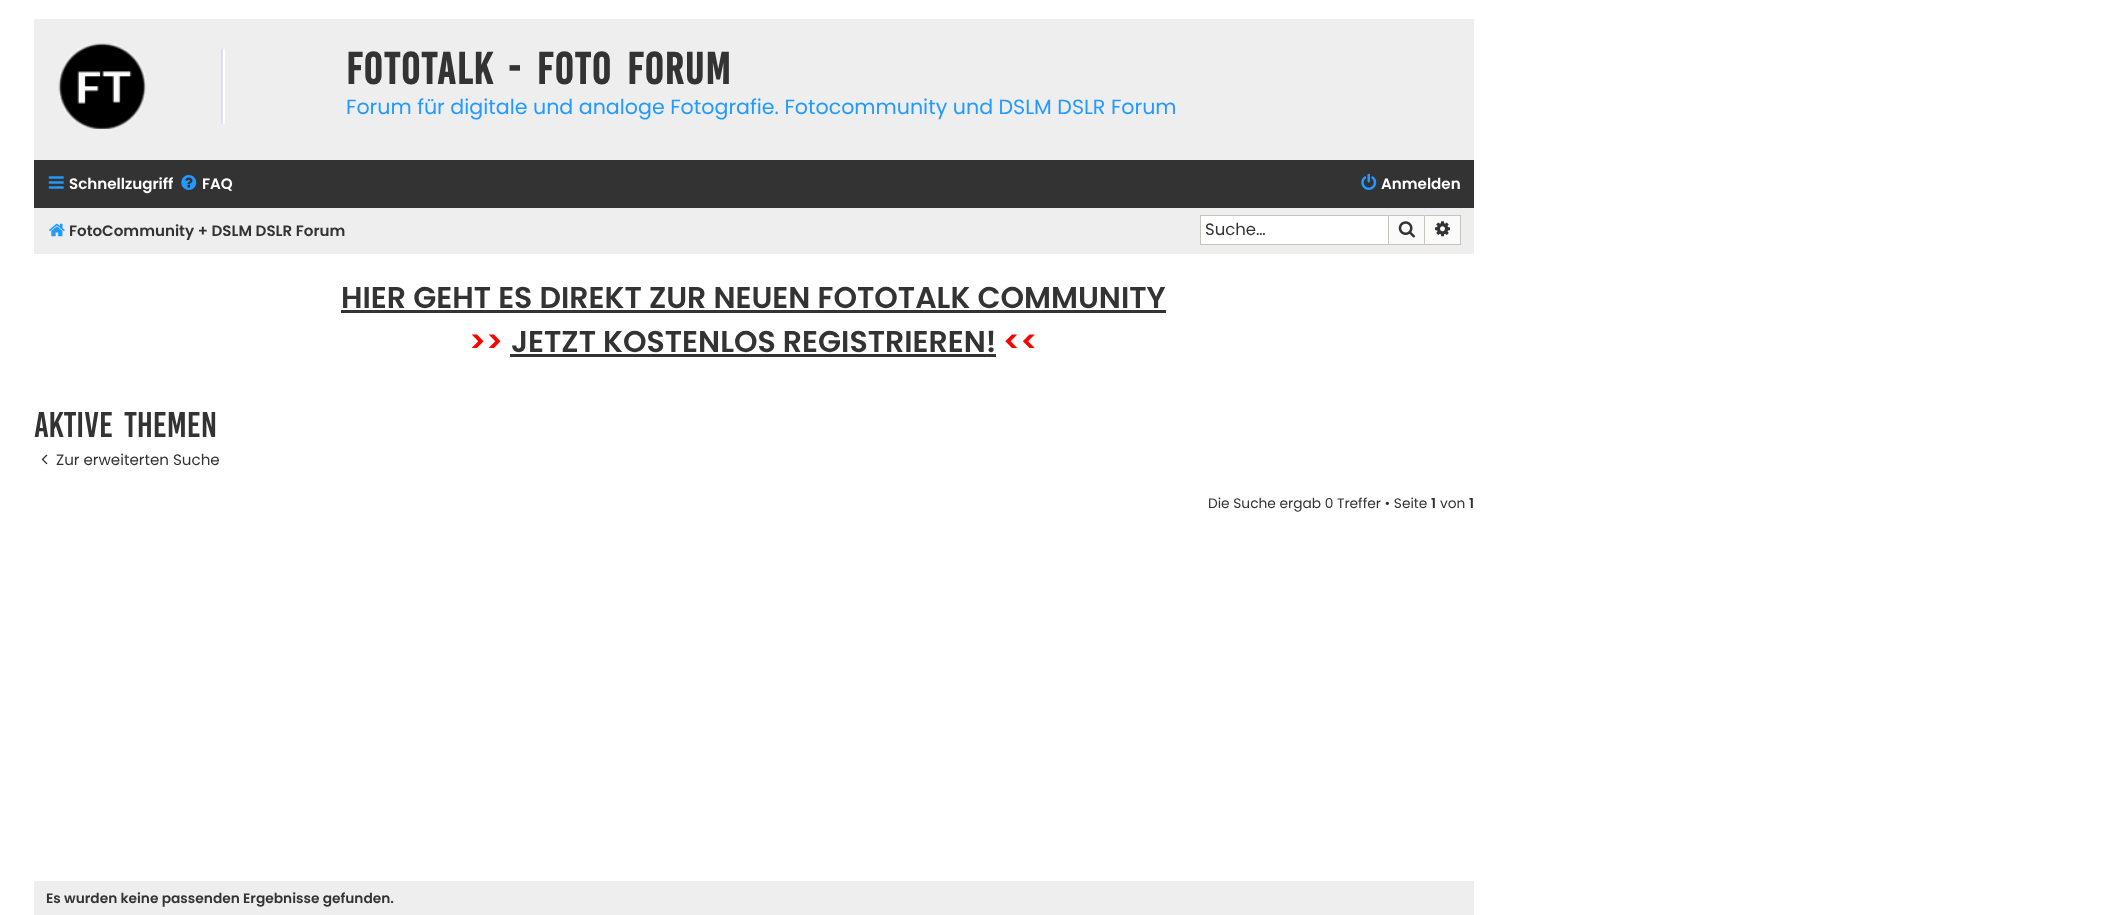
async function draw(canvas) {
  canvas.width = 2120;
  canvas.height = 915;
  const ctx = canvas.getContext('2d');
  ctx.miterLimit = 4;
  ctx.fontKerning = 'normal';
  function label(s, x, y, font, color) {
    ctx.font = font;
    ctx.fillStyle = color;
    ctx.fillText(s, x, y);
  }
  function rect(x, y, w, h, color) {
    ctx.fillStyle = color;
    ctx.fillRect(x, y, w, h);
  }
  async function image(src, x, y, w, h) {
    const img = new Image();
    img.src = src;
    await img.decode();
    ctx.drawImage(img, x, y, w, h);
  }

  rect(0, 0, 2120, 915, '#fff');
  rect(34, 19, 1440, 141, '#eee');
  await image('assets/img1.png', 58, 43, 167, 86);
  ctx.letterSpacing = '1.25px';
  ctx.wordSpacing = '5px';
  label('FotoTalk - Foto Forum', 346, 84, 'bold 34.4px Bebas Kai', '#333');
  ctx.letterSpacing = '0px';
  ctx.wordSpacing = '0px';
  label('Forum für digitale und analoge Fotografie. Fotocommunity und DSLM DSLR Forum', 346, 114, '20.6px Poppins', '#239aff');
  rect(34, 160, 1440, 48, '#333');
  await image('assets/img2.png', 48, 176, 16, 13);
  label('Schnellzugriff', 69, 189, '600 15.1px Poppins', '#fff');
  await image('assets/img3.png', 181, 175, 16, 15);
  label('FAQ', 202, 189, '600 15.1px Poppins', '#fff');
  await image('assets/img4.png', 1361, 173, 16, 17);
  label('Anmelden', 1381, 189, '600 15.1px Poppins', '#fff');
  rect(34, 208, 1440, 46, '#eee');
  await image('assets/img5.png', 49, 223, 16, 14);
  label('FotoCommunity + DSLM DSLR Forum', 69, 236, '600 15.1px Poppins', '#333');
  rect(1201, 216, 187, 28, '#fff');
  rect(1200, 215, 188, 1, '#c7c3bf');
  rect(1200, 244, 188, 1, '#c7c3bf');
  rect(1200, 215, 1, 30, '#c7c3bf');
  label('Suche…', 1205, 235, '16.5px Poppins', '#333');
  ctx.fillStyle = '#fafafa';
  ctx.beginPath();
  ctx.rect(1388.5, 215.5, 36, 29);
  ctx.fill();
  ctx.strokeStyle = '#c7c3bf';
  ctx.stroke();
  await image('assets/img6.png', 1398, 221, 17, 17);
  rect(1425, 216, 35, 28, '#fafafa');
  rect(1425, 215, 36, 1, '#c7c3bf');
  rect(1460, 215, 1, 30, '#c7c3bf');
  rect(1425, 244, 36, 1, '#c7c3bf');
  await image('assets/img7.png', 1435, 221, 15, 16);
  label('HIER GEHT ES DIREKT ZUR NEUEN FOTOTALK COMMUNITY', 341, 308, '600 30px Poppins', '#333');
  rect(341, 310, 825, 3, '#333');
  label('>>', 469, 352, '600 30px Poppins', '#f00');
  label('JETZT KOSTENLOS REGISTRIEREN!', 511, 352, '600 30px Poppins', '#333');
  rect(510, 354, 486, 3, '#333');
  label('<<', 1003, 352, '600 30px Poppins', '#f00');
  ctx.wordSpacing = '5px';
  label('Aktive Themen', 34, 437, '27.5px Bebas Kai', '#333');
  await image('assets/img8.png', 41, 454, 7, 11);
  ctx.wordSpacing = '0px';
  label('Zur erweiterten Suche', 56, 465, '15.1px Poppins', '#333');
  label('Die Suche ergab 0 Treffer • Seite', 1208, 508, '13.75px Poppins', '#333');
  label('1', 1431, 508, '600 13.75px Poppins', '#333');
  label('von', 1440, 508, '13.75px Poppins', '#333');
  label('1', 1469, 508, '600 13.75px Poppins', '#333');
  rect(34, 881, 1440, 34, '#eee');
  label('Es wurden keine passenden Ergebnisse gefunden.', 46, 903, '600 13.75px Poppins', '#333');
}

draw(document.querySelector('canvas'));
